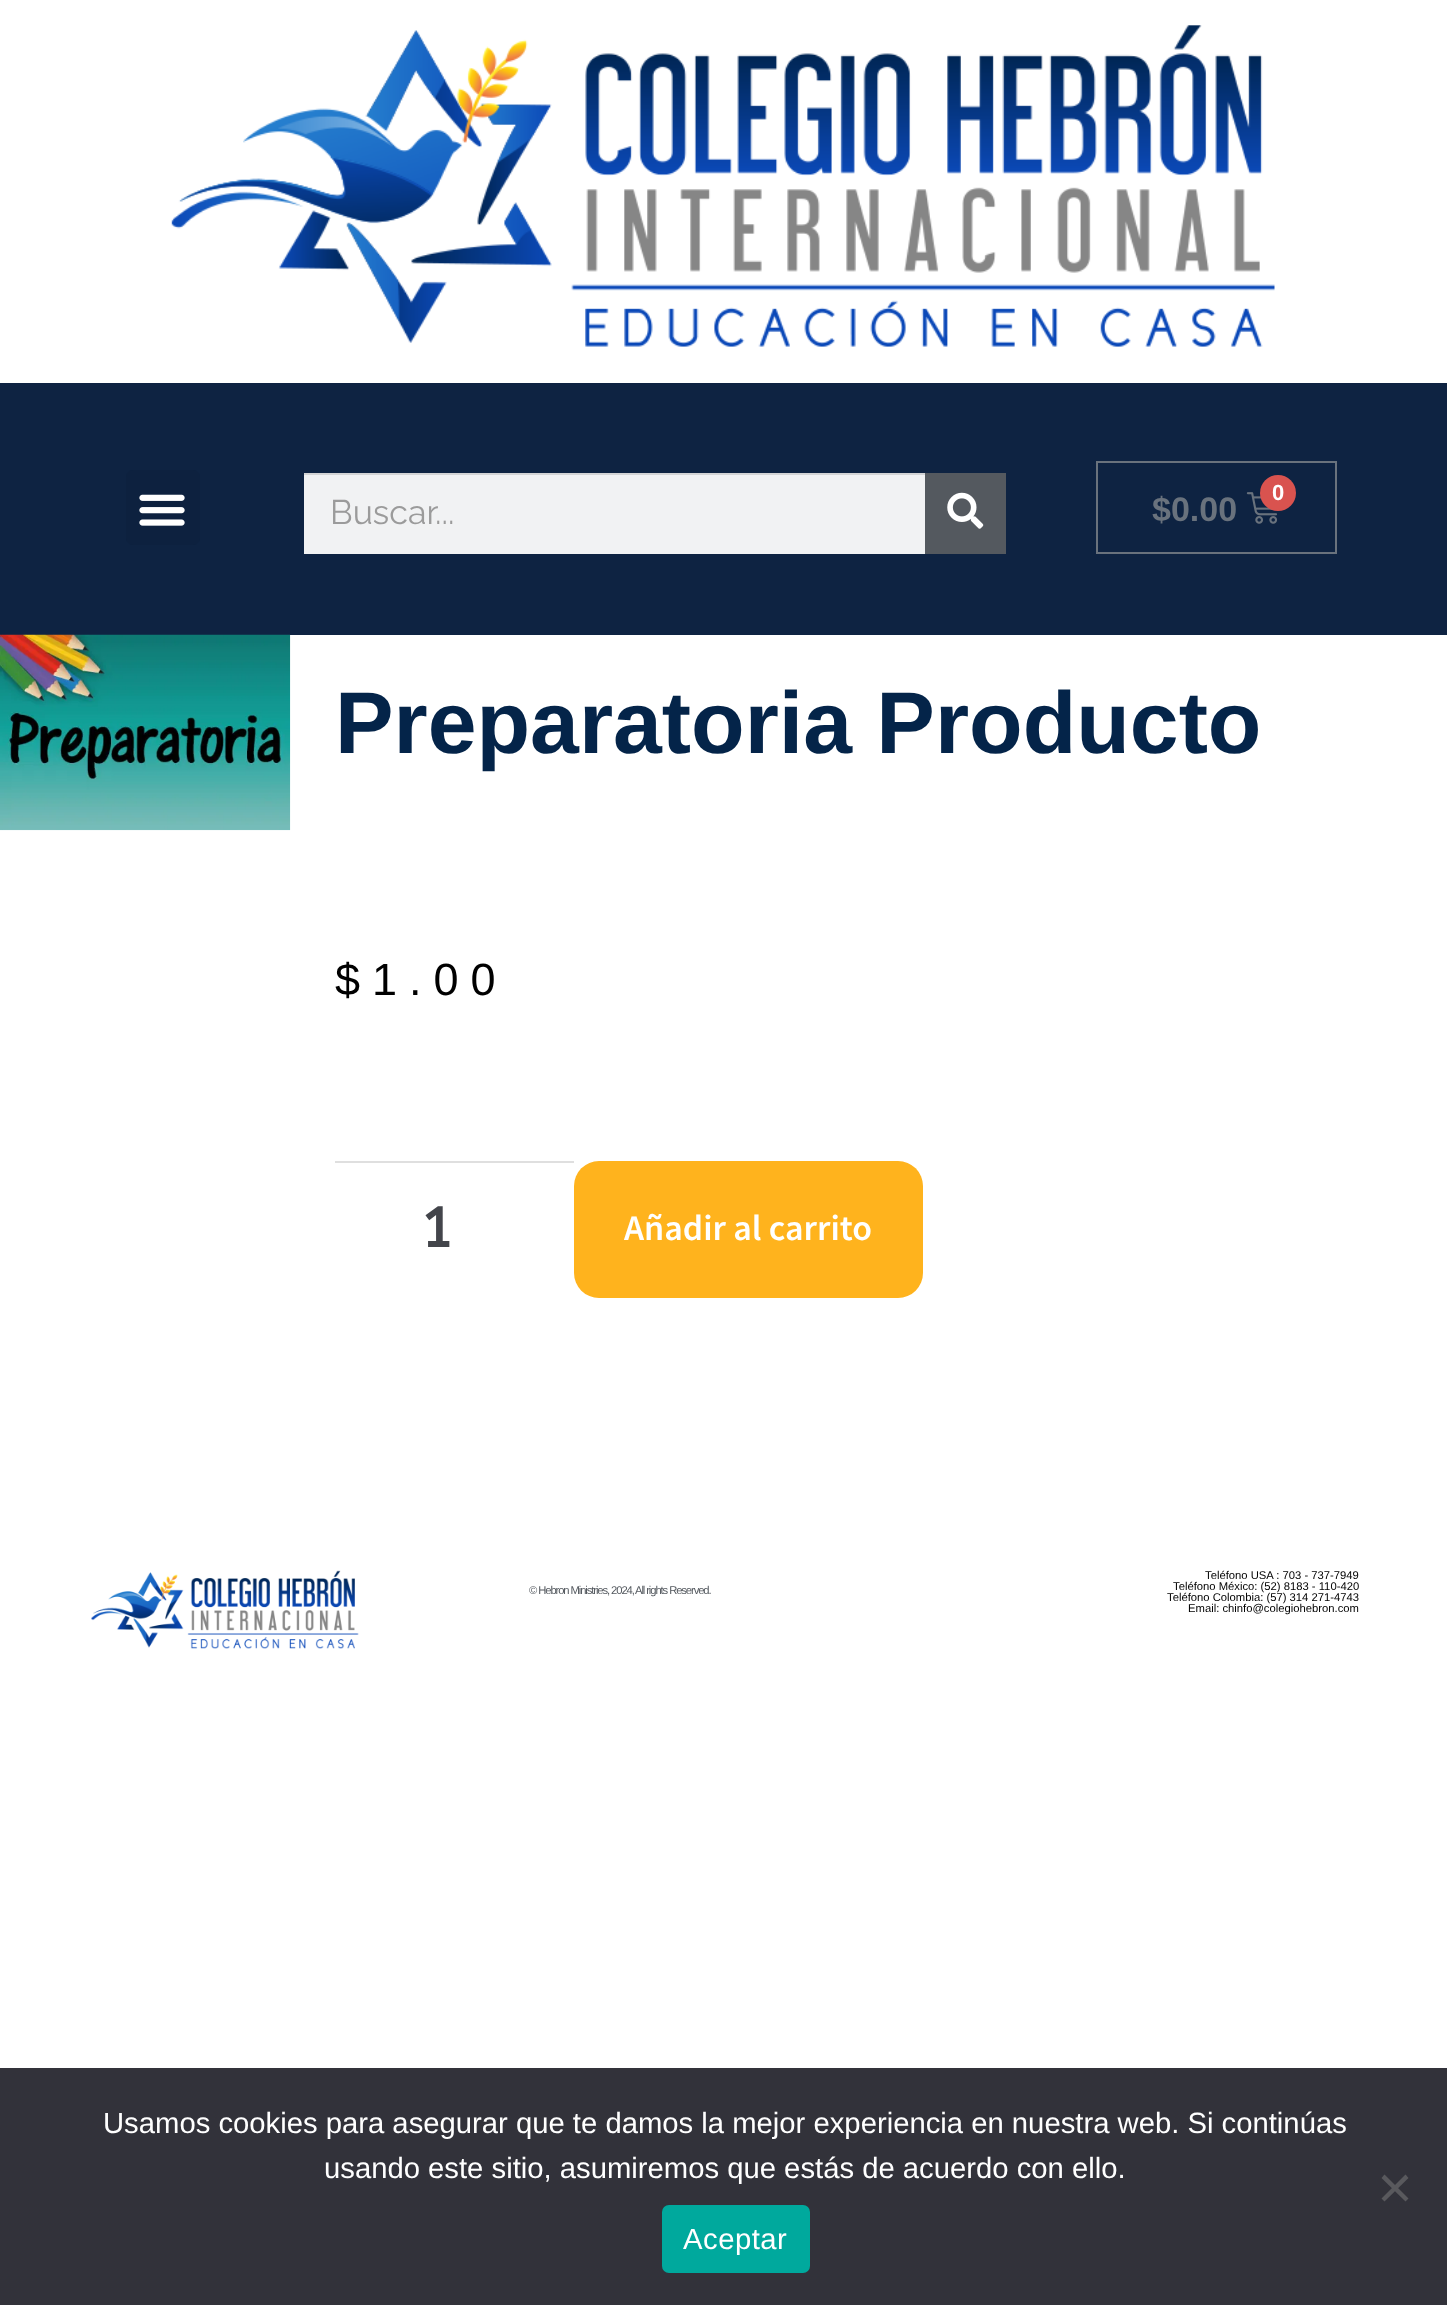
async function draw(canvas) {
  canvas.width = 1447;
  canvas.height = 2305;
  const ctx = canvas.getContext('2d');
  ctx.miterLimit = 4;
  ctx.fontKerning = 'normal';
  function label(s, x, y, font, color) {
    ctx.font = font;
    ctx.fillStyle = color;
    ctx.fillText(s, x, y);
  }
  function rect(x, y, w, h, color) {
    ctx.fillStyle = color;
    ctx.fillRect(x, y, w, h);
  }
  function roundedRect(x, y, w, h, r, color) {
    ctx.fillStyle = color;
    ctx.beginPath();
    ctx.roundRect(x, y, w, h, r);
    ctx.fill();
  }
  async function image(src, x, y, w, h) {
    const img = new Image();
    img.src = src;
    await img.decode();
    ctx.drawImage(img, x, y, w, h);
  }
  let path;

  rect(0, 0, 1447, 2305, '#fff');
  await image('assets/img1.png', 171, 25, 1104, 322);
  rect(0, 383, 1447, 252, '#0e2342');
  roundedRect(126, 470, 74, 75, 7, '#0d213f');
  await image('assets/img2.png', 139, 494, 46, 32);
  rect(304, 475, 621, 79, '#f1f2f3');
  rect(304, 473, 621, 2, '#d3d4d5');
  label('Buscar...', 330, 524, '34px Raleway', '#9b9b9b');
  rect(925, 473, 81, 81, '#54595f');
  await image('assets/img3.png', 947, 492, 37, 37);
  ctx.strokeStyle = '#69727d';
  ctx.lineWidth = 2;
  ctx.strokeRect(1097, 462, 239, 91);
  await image('assets/img4.png', 1246, 492, 32, 32);
  ctx.fillStyle = '#d9534f';
  ctx.beginPath();
  ctx.arc(1278, 493, 18, 0, 2 * Math.PI);
  ctx.fill();
  label('0', 1272, 500, 'bold 22px Liberation Sans', '#fff');
  label('$0.00', 1152, 521, 'bold 34px Liberation Sans', '#69727d');
  await image('assets/img5.png', 0, 634, 291, 197);
  label('Preparatoria Producto', 335, 753, 'bold 87.75px Liberation Sans', '#042449');
  ctx.letterSpacing = '12px';
  label('$1.00', 335, 995, '45px Liberation Sans', '#000');
  rect(335, 1161, 239, 2, '#dfdfdf');
  ctx.letterSpacing = '0px';
  label('1', 420, 1247, 'bold 56px ABeeZee', '#43454b');
  roundedRect(574, 1161, 349, 137, 25, '#ffb31d');
  label('Añadir al carrito', 624, 1240, '600 36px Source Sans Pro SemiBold', '#fff');
  await image('assets/img6.png', 91, 1570, 268, 79);
  ctx.letterSpacing = '-1.1px';
  label('© Hebron Ministries, 2024,', 529, 1594, '11.25px Liberation Sans', '#54595f');
  label('All rights Reserved.', 635, 1594, '11.25px Liberation Sans', '#54595f');
  ctx.letterSpacing = '0px';
  label('Teléfono USA : 703 - 737-7949', 1205, 1579, '11.25px Liberation Sans', '#000');
  label('Teléfono México: (52) 8183 - 110-420', 1173, 1590, '11.25px Liberation Sans', '#000');
  label('Teléfono Colombia: (57) 314 271-4743', 1167, 1601, '11.25px Liberation Sans', '#000');
  label('Email: chinfo@colegiohebron.com', 1188, 1612, '11.25px Liberation Sans', '#000');
  rect(0, 2068, 1447, 237, '#32323a');
  label('Usamos cookies para asegurar que te damos la mejor experiencia en nuestra web. Si continúas', 103, 2133, '29.25px Liberation Sans', '#fff');
  label('usando este sitio, asumiremos que estás de acuerdo con ello.', 324, 2178, '29.25px Liberation Sans', '#fff');
  ctx.fillStyle = '#59595d';
  path = new Path2D('M1405.5 2174.5L1408.5 2178L1384.5 2201.5L1381.5 2198.5Z');
  ctx.fill(path);
  path = new Path2D('M1381.5 2178L1384.5 2174.5L1408.5 2198.5L1405.5 2201.5Z');
  ctx.fill(path);
  roundedRect(662, 2205, 148, 68, 7, '#00a99d');
  ctx.letterSpacing = '0.5px';
  label('Aceptar', 683, 2249, '29.25px Liberation Sans', '#fff');
}

draw(document.querySelector('canvas'));
